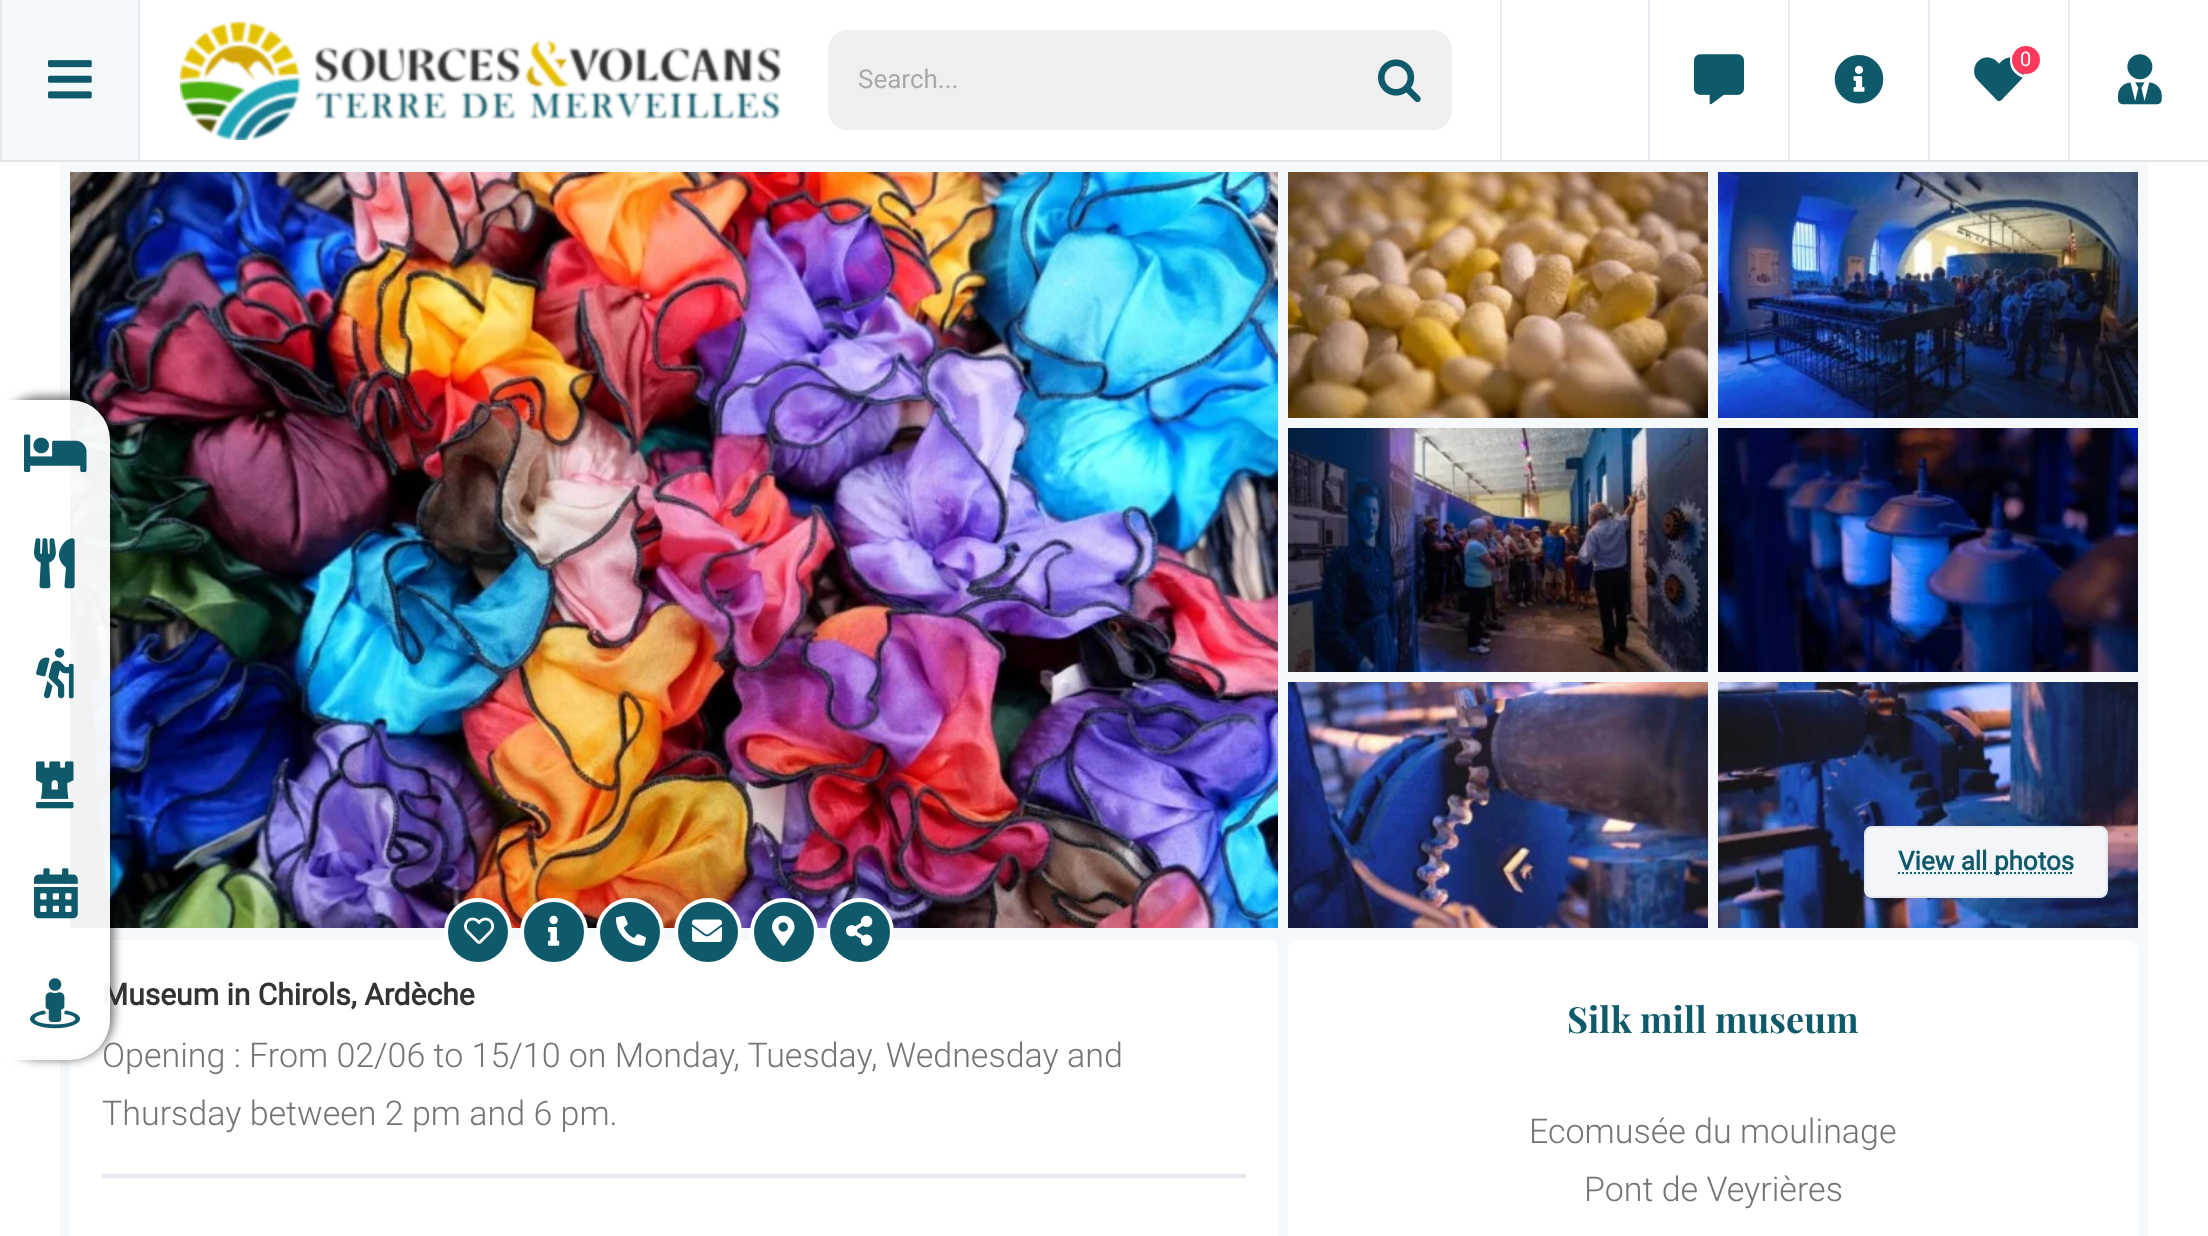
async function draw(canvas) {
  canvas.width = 2208;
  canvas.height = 1236;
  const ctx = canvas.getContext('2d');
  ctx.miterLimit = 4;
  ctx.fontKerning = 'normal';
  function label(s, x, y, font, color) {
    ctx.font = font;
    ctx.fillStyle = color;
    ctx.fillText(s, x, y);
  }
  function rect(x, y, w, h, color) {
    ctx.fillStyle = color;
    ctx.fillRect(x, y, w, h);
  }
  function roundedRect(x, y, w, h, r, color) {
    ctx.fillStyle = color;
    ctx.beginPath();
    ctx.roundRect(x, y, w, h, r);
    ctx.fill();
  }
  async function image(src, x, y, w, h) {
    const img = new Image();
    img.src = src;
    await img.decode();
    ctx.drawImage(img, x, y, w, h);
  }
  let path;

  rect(0, 0, 2208, 1236, '#fff');
  rect(60, 162, 2088, 1074, '#f6f9fc');
  await image('assets/img14.png', 70, 172, 1208, 756);
  roundedRect(70, 940, 1208, 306, 10, '#fff');
  ctx.save();
  path = new Path2D('M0 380H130V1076H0ZM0 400H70C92 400 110 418 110 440V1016C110 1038 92 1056 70 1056H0Z');
  ctx.clip(path, 'evenodd');
  ctx.fillStyle = '#00000085';
  ctx.filter = 'blur(5px)';
  ctx.beginPath();
  ctx.roundRect(-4, 396, 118, 664, 44);
  ctx.fill();
  ctx.filter = 'none';
  ctx.restore();
  ctx.fillStyle = '#fffffff2';
  ctx.beginPath();
  ctx.roundRect(0, 400, 110, 110, [0, 40, 0, 0]);
  ctx.fill();
  await image('assets/img1.png', 24, 434, 63, 38);
  rect(60, 510, 50, 110, '#fffffff2');
  await image('assets/img2.png', 34, 538, 41, 51);
  rect(60, 620, 50, 110, '#fffffff2');
  await image('assets/img3.png', 36, 648, 38, 51);
  rect(60, 730, 50, 110, '#fffffff2');
  await image('assets/img4.png', 36, 761, 38, 48);
  rect(60, 840, 50, 110, '#fffffff2');
  await image('assets/img5.png', 34, 868, 44, 51);
  label('Museum in Chirols, Ardèche', 102, 1005, 'bold 30px Roboto', '#333');
  label('Opening : From 02/06 to 15/10 on Monday, Tuesday, Wednesday and', 102, 1067, '300 34px Roboto', '#747474');
  ctx.fillStyle = '#fffffff2';
  ctx.beginPath();
  ctx.roundRect(0, 950, 110, 110, [0, 0, 40, 0]);
  ctx.fill();
  await image('assets/img6.png', 30, 978, 50, 51);
  rect(0, 160, 2208, 2, '#e5e5e5');
  rect(2, 0, 136, 160, '#f6f9fc');
  rect(138, 0, 2, 160, '#e3e9ef');
  rect(0, 0, 2, 160, '#e3e9ef');
  await image('assets/img7.png', 48, 60, 44, 39);
  await image('assets/img8.png', 180, 21, 601, 119);
  rect(1500, 0, 2, 160, '#e3e9ef');
  rect(1648, 0, 2, 160, '#e3e9ef');
  await image('assets/img9.png', 1694, 54, 50, 51);
  rect(1788, 0, 2, 160, '#e3e9ef');
  await image('assets/img10.png', 1834, 55, 50, 49);
  rect(1928, 0, 2, 160, '#e3e9ef');
  await image('assets/img11.png', 1974, 57, 50, 45);
  ctx.beginPath();
  ctx.arc(2027, 61, 15.5, 0, 2 * Math.PI);
  ctx.strokeStyle = '#fff';
  ctx.lineWidth = 3;
  ctx.stroke();
  ctx.fillStyle = '#ff385c';
  ctx.beginPath();
  ctx.arc(2026, 60, 14, 0, 2 * Math.PI);
  ctx.fill();
  label('0', 2020, 66, '20px Roboto', '#fff');
  rect(2068, 0, 2, 160, '#e3e9ef');
  await image('assets/img12.png', 2118, 54, 44, 51);
  ctx.fillStyle = '#efefef';
  ctx.beginPath();
  ctx.roundRect(828, 30, 550, 100, [20, 0, 0, 20]);
  ctx.fill();
  label('Search...', 858, 88, '26px Roboto', '#aaa9a9');
  ctx.fillStyle = '#efefef';
  ctx.beginPath();
  ctx.roundRect(1378, 30, 74, 100, [0, 20, 20, 0]);
  ctx.fill();
  await image('assets/img13.png', 1378, 59, 43, 44);
  await image('assets/img15.png', 1288, 172, 420, 246);
  await image('assets/img16.png', 1718, 172, 420, 246);
  await image('assets/img17.png', 1288, 428, 420, 244);
  await image('assets/img18.png', 1718, 428, 420, 244);
  await image('assets/img19.png', 1288, 682, 420, 246);
  await image('assets/img20.png', 1718, 682, 420, 246);
  ctx.fillStyle = '#f3f5f9';
  ctx.beginPath();
  ctx.roundRect(1865, 827, 242, 70, 7);
  ctx.fill();
  ctx.strokeStyle = '#e3e9ef';
  ctx.lineWidth = 2;
  ctx.stroke();
  path = new Path2D('M1898 873H2074');
  ctx.strokeStyle = '#0e5a6a';
  ctx.setLineDash([2, 2]);
  ctx.stroke(path);
  label('View all photos', 1898, 870, 'bold 26px Roboto', '#0e5a6a');
  ctx.beginPath();
  ctx.arc(478, 932, 32, 0, 2 * Math.PI);
  ctx.fill();
  ctx.strokeStyle = '#fff';
  ctx.lineWidth = 4;
  ctx.setLineDash([]);
  ctx.stroke();
  await image('assets/img21.png', 464, 917, 31, 27);
  ctx.beginPath();
  ctx.arc(554, 932, 32, 0, 2 * Math.PI);
  ctx.fill();
  ctx.stroke();
  await image('assets/img22.png', 548, 915, 12, 31);
  ctx.beginPath();
  ctx.arc(630, 932, 32, 0, 2 * Math.PI);
  ctx.fill();
  ctx.stroke();
  await image('assets/img23.png', 616, 915, 30, 31);
  ctx.beginPath();
  ctx.arc(708, 932, 32, 0, 2 * Math.PI);
  ctx.fill();
  ctx.stroke();
  await image('assets/img24.png', 692, 919, 30, 23);
  ctx.beginPath();
  ctx.arc(784, 932, 32, 0, 2 * Math.PI);
  ctx.fill();
  ctx.stroke();
  await image('assets/img25.png', 772, 915, 23, 31);
  ctx.beginPath();
  ctx.arc(860, 932, 32, 0, 2 * Math.PI);
  ctx.fill();
  ctx.stroke();
  await image('assets/img26.png', 846, 915, 27, 31);
  label('Thursday between 2 pm and 6 pm.', 102, 1125, '300 34px Roboto', '#747474');
  rect(102, 1174, 1144, 4, '#e3e9ef');
  roundedRect(1288, 940, 850, 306, 10, '#fff');
  label('Silk mill museum', 1567, 1033, 'bold 36px Playfair Display', '#0e5a6a');
  label('Ecomusée du moulinage', 1529, 1143, '300 34px Roboto', '#747474');
  label('Pont de Veyrières', 1584, 1201, '300 34px Roboto', '#747474');
}

draw(document.querySelector('canvas'));
